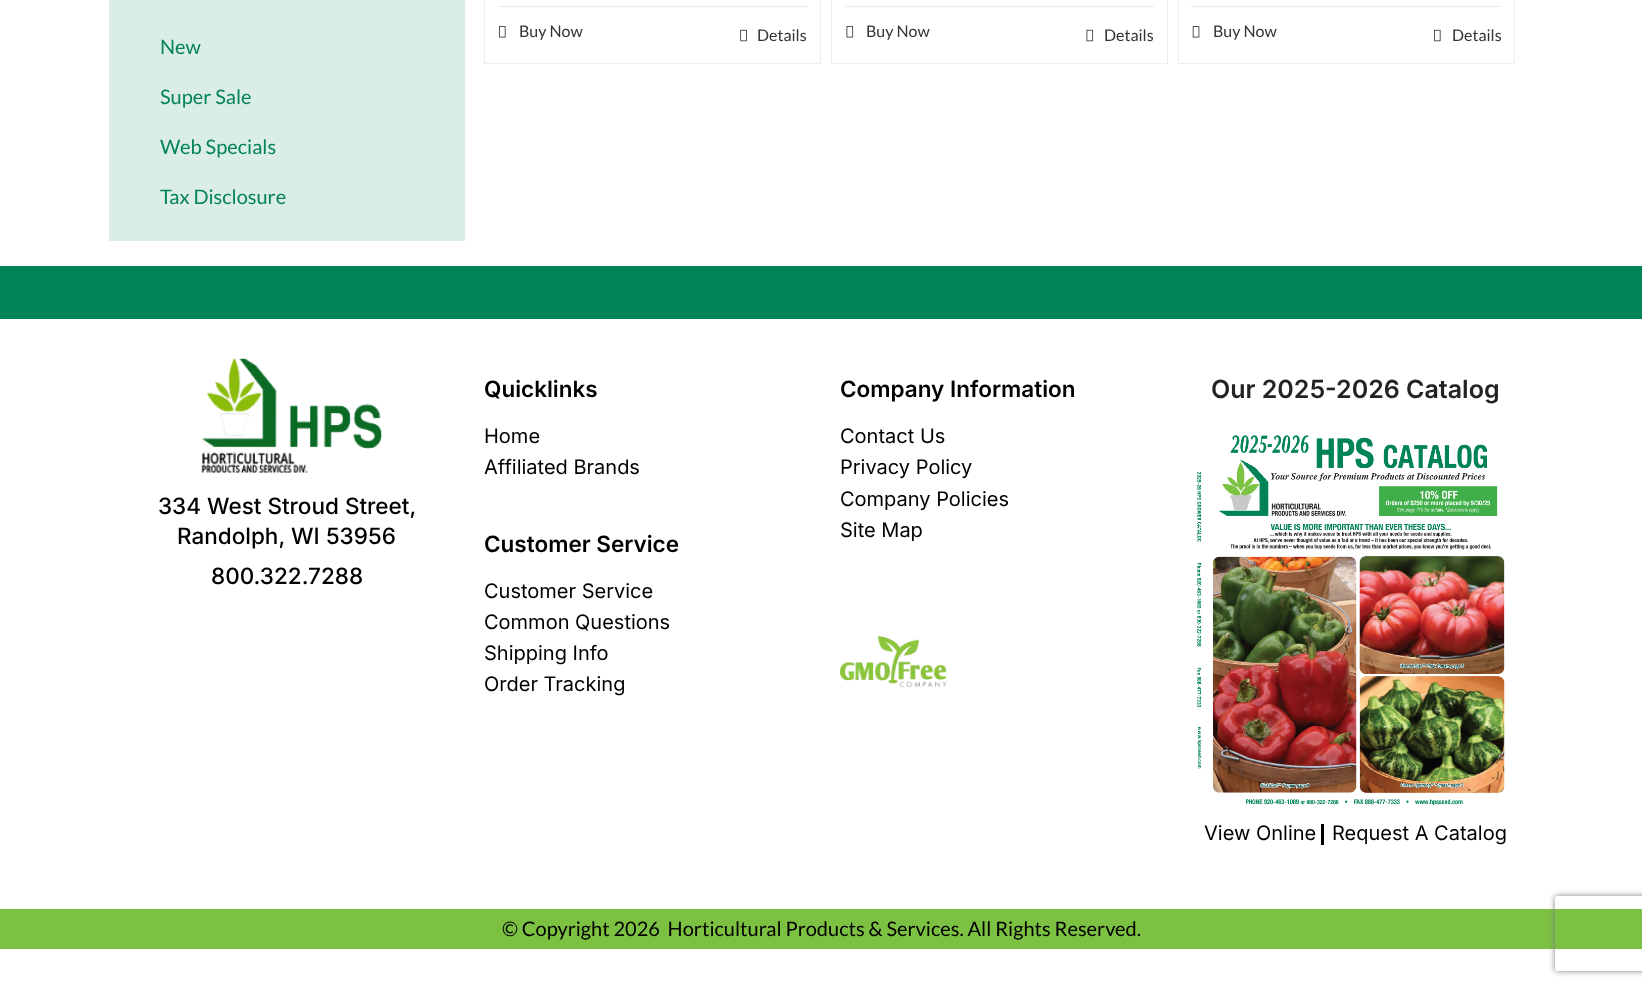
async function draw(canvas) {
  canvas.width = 1642;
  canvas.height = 988;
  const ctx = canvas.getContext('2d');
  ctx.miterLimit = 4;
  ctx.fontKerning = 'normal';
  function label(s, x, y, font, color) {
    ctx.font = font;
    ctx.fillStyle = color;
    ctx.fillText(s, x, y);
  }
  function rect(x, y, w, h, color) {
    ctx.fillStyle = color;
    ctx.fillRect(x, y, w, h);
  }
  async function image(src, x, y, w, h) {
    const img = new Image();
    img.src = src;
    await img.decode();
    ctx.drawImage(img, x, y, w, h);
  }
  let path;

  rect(0, 0, 1642, 988, '#fff');
  ctx.strokeStyle = '#eee';
  ctx.strokeRect(484.5, -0.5, 336, 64);
  rect(498, 6, 310, 1, '#eaeaea');
  await image('assets/img1.png', 499, 26, 7, 12);
  label('Buy Now', 519, 37, '16px Lato', '#333');
  await image('assets/img2.png', 740, 29, 7, 13);
  label('Details', 757, 41, '16px Lato', '#333');
  ctx.strokeRect(831.5, -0.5, 336, 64);
  rect(845, 6, 309, 1, '#eaeaea');
  await image('assets/img3.png', 846, 26, 8, 12);
  label('Buy Now', 866, 37, '16px Lato', '#333');
  await image('assets/img4.png', 1086, 29, 8, 13);
  label('Details', 1104, 41, '16px Lato', '#333');
  ctx.strokeRect(1178.5, -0.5, 336, 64);
  rect(1191, 6, 310, 1, '#eaeaea');
  await image('assets/img5.png', 1192, 26, 8, 12);
  label('Buy Now', 1213, 37, '16px Lato', '#333');
  await image('assets/img6.png', 1434, 29, 7, 13);
  label('Details', 1452, 41, '16px Lato', '#333');
  rect(109, 0, 356, 241, '#daede6');
  label('New', 160, 54, '20px Lato', '#058359');
  label('Super Sale', 160, 104, '20px Lato', '#058359');
  label('Web Specials', 160, 154, '20px Lato', '#058359');
  label('Tax Disclosure', 160, 204, '20px Lato', '#058359');
  rect(0, 266, 1642, 53, '#008357');
  await image('assets/img7.png', 201, 358, 181, 115);
  label('334 West Stroud Street,', 158, 514, '500 22.5px Inter', '#000');
  label('Randolph, WI 53956', 177, 544, '500 22.5px Inter', '#000');
  label('800.322.7288', 211, 584, '500 22.5px Inter', '#000');
  label('Quicklinks', 484, 397, '600 22.5px Inter', '#000');
  label('Home', 484, 443, '20px Inter', '#000');
  label('Affiliated Brands', 484, 474, '20px Inter', '#000');
  label('Customer Service', 484, 552, '600 22.5px Inter', '#000');
  label('Customer Service', 484, 598, '20px Inter', '#000');
  label('Common Questions', 484, 629, '20px Inter', '#000');
  label('Shipping Info', 484, 660, '20px Inter', '#000');
  label('Order Tracking', 484, 691, '20px Inter', '#000');
  label('Company Information', 840, 397, '600 22.5px Inter', '#000');
  label('Contact Us', 840, 443, '20px Inter', '#000');
  label('Privacy Policy', 840, 474, '20px Inter', '#000');
  label('Company Policies', 840, 506, '20px Inter', '#000');
  label('Site Map', 840, 537, '20px Inter', '#000');
  await image('assets/img8.png', 840, 636, 107, 52);
  label('Our 2025-2026 Catalog', 1211, 398, '600 25px Inter', '#232323');
  await image('assets/img9.png', 1197, 435, 308, 371);
  label('View Online', 1204, 840, '20px Inter', '#000');
  rect(1321, 824, 3, 21, '#000');
  label('Request A Catalog', 1332, 840, '20px Inter', '#000');
  rect(0, 909, 1642, 40, '#7cc142');
  label('© Copyright 2026  Horticultural Products & Services. All Rights Reserved.', 502, 936, '20px Lato', '#000');
  ctx.save();
  path = new Path2D('M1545 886H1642V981H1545ZM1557.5 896H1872.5C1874 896 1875 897 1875 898.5V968.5C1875 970 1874 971 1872.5 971H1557.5C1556 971 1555 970 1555 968.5V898.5C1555 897 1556 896 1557.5 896Z');
  ctx.clip(path, 'evenodd');
  ctx.fillStyle = '#808080';
  ctx.filter = 'blur(3px)';
  ctx.beginPath();
  ctx.roundRect(1555, 896, 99, 75, 2.5);
  ctx.fill();
  ctx.filter = 'none';
  ctx.restore();
}

draw(document.querySelector('canvas'));
